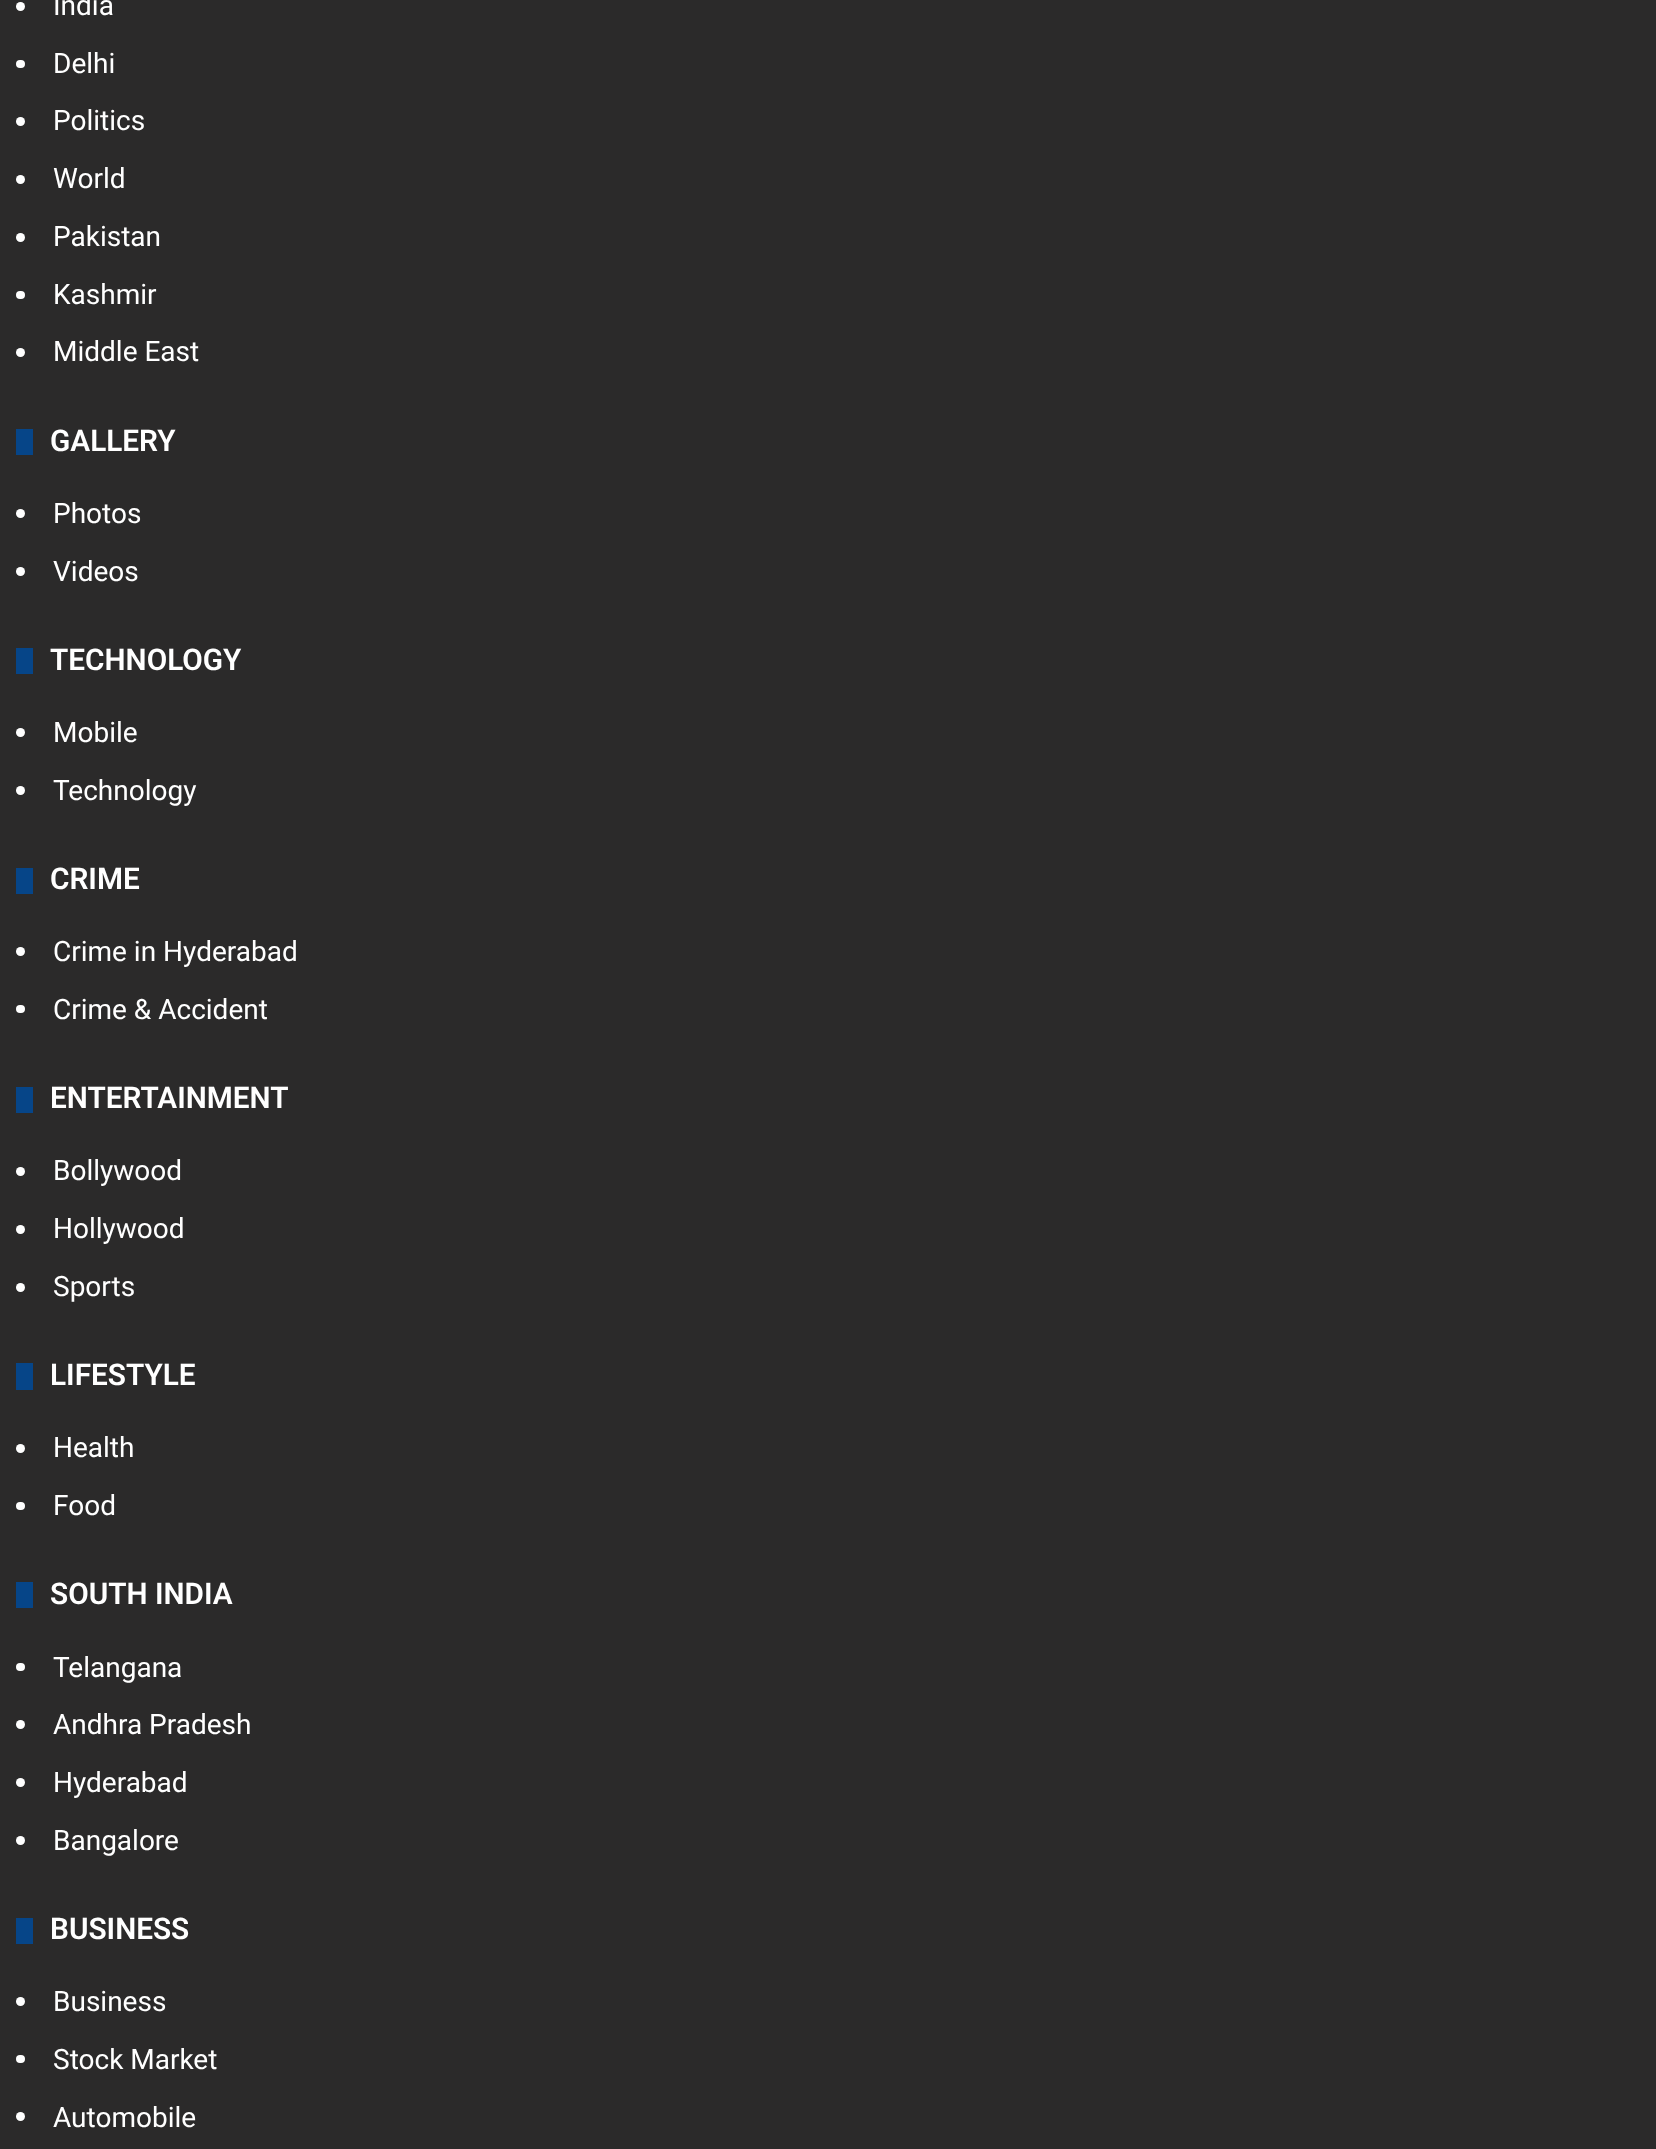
async function draw(canvas) {
  canvas.width = 1656;
  canvas.height = 2149;
  const ctx = canvas.getContext('2d');
  ctx.miterLimit = 4;
  ctx.fontKerning = 'normal';
  function label(s, x, y, font, color) {
    ctx.font = font;
    ctx.fillStyle = color;
    ctx.fillText(s, x, y);
  }
  function rect(x, y, w, h, color) {
    ctx.fillStyle = color;
    ctx.fillRect(x, y, w, h);
  }
  function roundedRect(x, y, w, h, r, color) {
    ctx.fillStyle = color;
    ctx.beginPath();
    ctx.roundRect(x, y, w, h, r);
    ctx.fill();
  }

  rect(0, 0, 1656, 2149, '#2b2a2a');
  ctx.fillStyle = '#fff';
  ctx.beginPath();
  ctx.arc(20.5, 6.5, 4.5, 0, 2 * Math.PI);
  ctx.fill();
  label('India', 53, 15, '28px Roboto', '#fff');
  roundedRect(16, 60, 9, 8, 4, '#fff');
  label('Delhi', 53, 73, '28px Roboto', '#fff');
  ctx.beginPath();
  ctx.arc(20.5, 121.5, 4.5, 0, 2 * Math.PI);
  ctx.fill();
  label('Politics', 53, 130, '28px Roboto', '#fff');
  ctx.beginPath();
  ctx.arc(20.5, 179.5, 4.5, 0, 2 * Math.PI);
  ctx.fill();
  label('World', 53, 188, '28px Roboto', '#fff');
  ctx.beginPath();
  ctx.arc(20.5, 237.5, 4.5, 0, 2 * Math.PI);
  ctx.fill();
  label('Pakistan', 53, 246, '28px Roboto', '#fff');
  roundedRect(16, 291, 9, 8, 4, '#fff');
  label('Kashmir', 53, 304, '28px Roboto', '#fff');
  ctx.beginPath();
  ctx.arc(20.5, 352.5, 4.5, 0, 2 * Math.PI);
  ctx.fill();
  label('Middle East', 53, 361, '28px Roboto', '#fff');
  rect(16, 429, 17, 26, '#064588');
  label('GALLERY', 50, 451, '600 29.75px Roboto', '#fff');
  ctx.beginPath();
  ctx.arc(20.5, 513.5, 4.5, 0, 2 * Math.PI);
  ctx.fill();
  label('Photos', 53, 523, '28px Roboto', '#fff');
  ctx.beginPath();
  ctx.arc(20.5, 571.5, 4.5, 0, 2 * Math.PI);
  ctx.fill();
  label('Videos', 53, 581, '28px Roboto', '#fff');
  rect(16, 648, 17, 26, '#064588');
  label('TECHNOLOGY', 50, 670, '600 29.75px Roboto', '#fff');
  ctx.beginPath();
  ctx.arc(20.5, 732.5, 4.5, 0, 2 * Math.PI);
  ctx.fill();
  label('Mobile', 53, 742, '28px Roboto', '#fff');
  ctx.beginPath();
  ctx.arc(20.5, 790.5, 4.5, 0, 2 * Math.PI);
  ctx.fill();
  label('Technology', 53, 800, '28px Roboto', '#fff');
  rect(16, 868, 17, 26, '#064588');
  label('CRIME', 50, 889, '600 29.75px Roboto', '#fff');
  ctx.beginPath();
  ctx.arc(20.5, 951.5, 4.5, 0, 2 * Math.PI);
  ctx.fill();
  label('Crime in Hyderabad', 53, 961, '28px Roboto', '#fff');
  roundedRect(16, 1005, 9, 8, 4, '#fff');
  label('Crime & Accident', 53, 1019, '28px Roboto', '#fff');
  rect(16, 1087, 17, 26, '#064588');
  label('ENTERTAINMENT', 50, 1108, '600 29.75px Roboto', '#fff');
  ctx.beginPath();
  ctx.arc(20.5, 1171.5, 4.5, 0, 2 * Math.PI);
  ctx.fill();
  label('Bollywood', 53, 1180, '28px Roboto', '#fff');
  ctx.beginPath();
  ctx.arc(20.5, 1229.5, 4.5, 0, 2 * Math.PI);
  ctx.fill();
  label('Hollywood', 53, 1238, '28px Roboto', '#fff');
  ctx.beginPath();
  ctx.arc(20.5, 1287.5, 4.5, 0, 2 * Math.PI);
  ctx.fill();
  label('Sports', 53, 1296, '28px Roboto', '#fff');
  rect(16, 1363, 17, 27, '#064588');
  label('LIFESTYLE', 50, 1385, '600 29.75px Roboto', '#fff');
  ctx.beginPath();
  ctx.arc(20.5, 1448.5, 4.5, 0, 2 * Math.PI);
  ctx.fill();
  label('Health', 53, 1457, '28px Roboto', '#fff');
  roundedRect(16, 1502, 9, 8, 4, '#fff');
  label('Food', 53, 1515, '28px Roboto', '#fff');
  rect(16, 1582, 17, 26, '#064588');
  label('SOUTH INDIA', 50, 1604, '600 29.75px Roboto', '#fff');
  roundedRect(16, 1663, 9, 8, 4, '#fff');
  label('Telangana', 53, 1677, '28px Roboto', '#fff');
  ctx.beginPath();
  ctx.arc(20.5, 1724.5, 4.5, 0, 2 * Math.PI);
  ctx.fill();
  label('Andhra Pradesh', 53, 1734, '28px Roboto', '#fff');
  ctx.beginPath();
  ctx.arc(20.5, 1782.5, 4.5, 0, 2 * Math.PI);
  ctx.fill();
  label('Hyderabad', 53, 1792, '28px Roboto', '#fff');
  ctx.beginPath();
  ctx.arc(20.5, 1840.5, 4.5, 0, 2 * Math.PI);
  ctx.fill();
  label('Bangalore', 53, 1850, '28px Roboto', '#fff');
  rect(16, 1918, 17, 26, '#064588');
  label('BUSINESS', 50, 1939, '600 29.75px Roboto', '#fff');
  ctx.beginPath();
  ctx.arc(20.5, 2001.5, 4.5, 0, 2 * Math.PI);
  ctx.fill();
  label('Business', 53, 2011, '28px Roboto', '#fff');
  roundedRect(16, 2055, 9, 8, 4, '#fff');
  label('Stock Market', 53, 2069, '28px Roboto', '#fff');
  ctx.beginPath();
  ctx.arc(20.5, 2116.5, 4.5, 0, 2 * Math.PI);
  ctx.fill();
  label('Automobile', 53, 2127, '28px Roboto', '#fff');
}

draw(document.querySelector('canvas'));
